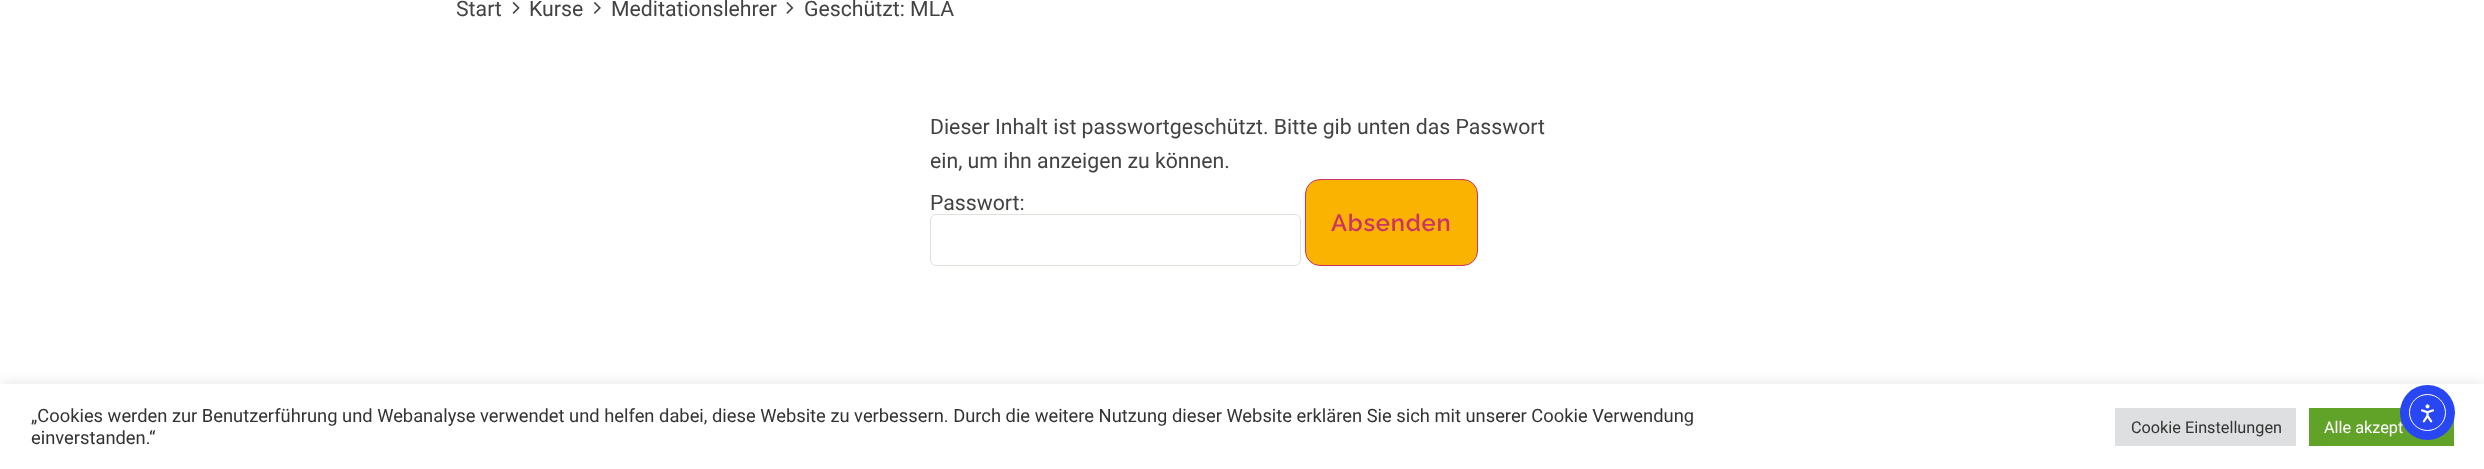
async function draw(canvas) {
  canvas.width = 2484;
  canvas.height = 469;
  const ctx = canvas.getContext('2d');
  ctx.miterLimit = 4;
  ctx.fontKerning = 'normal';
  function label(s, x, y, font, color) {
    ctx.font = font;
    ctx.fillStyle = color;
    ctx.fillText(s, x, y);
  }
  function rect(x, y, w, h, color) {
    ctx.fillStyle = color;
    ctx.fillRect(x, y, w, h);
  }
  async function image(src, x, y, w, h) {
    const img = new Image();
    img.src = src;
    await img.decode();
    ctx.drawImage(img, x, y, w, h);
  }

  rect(0, 0, 2484, 469, '#fff');
  label('Start', 456, 16, '21.25px Roboto', '#434343');
  await image('assets/img1.png', 512, 2, 8, 12);
  label('Kurse', 529, 16, '21.25px Roboto', '#434343');
  await image('assets/img2.png', 593, 2, 8, 12);
  label('Meditationslehrer', 611, 16, '21.25px Roboto', '#434343');
  await image('assets/img3.png', 786, 2, 8, 12);
  label('Geschützt: MLA', 804, 16, '21.25px Roboto', '#434343');
  label('Dieser Inhalt ist passwortgeschützt. Bitte gib unten das Passwort', 930, 134, '21.25px Roboto', '#434343');
  label('ein, um ihn anzeigen zu können.', 930, 168, '21.25px Roboto', '#434343');
  label('Passwort:', 930, 210, '21.25px Roboto', '#434343');
  ctx.beginPath();
  ctx.roundRect(930.5, 214.5, 370, 51, 5.5);
  ctx.strokeStyle = '#e2e0db';
  ctx.stroke();
  ctx.fillStyle = '#fab300';
  ctx.beginPath();
  ctx.roundRect(1305.5, 179.5, 172, 86, 14.5);
  ctx.fill();
  ctx.strokeStyle = '#c36';
  ctx.stroke();
  ctx.letterSpacing = '0.75px';
  label('Absenden', 1331, 231, '600 23.75px Raleway', '#c36');
  ctx.fillStyle = '#acabab4d';
  ctx.filter = 'blur(6px)';
  ctx.beginPath();
  ctx.rect(0, 383, 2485, 86);
  ctx.fill();
  ctx.filter = 'none';
  rect(0, 384, 2484, 85, '#fff');
  ctx.letterSpacing = '0px';
  label('„Cookies werden zur Benutzerführung und Webanalyse verwendet und helfen dabei, diese Website zu verbessern. Durch die weitere Nutzung dieser Website erklären Sie sich mit unserer Cookie Verwendung', 31, 422, '18.33px Roboto', '#333');
  label('einverstanden.“', 31, 444, '18.33px Roboto', '#333');
  rect(2115, 408, 181, 38, '#dedfe0');
  label('Cookie Einstellungen', 2131, 433, '16.25px Roboto', '#333');
  rect(2309, 408, 145, 38, '#61a229');
  label('Alle akzept', 2324, 433, '16.25px Roboto', '#fff');
  ctx.fillStyle = '#2847f3';
  ctx.beginPath();
  ctx.arc(2427.5, 412.5, 27.5, 0, 2 * Math.PI);
  ctx.fill();
  ctx.beginPath();
  ctx.arc(2427.5, 412.5, 18, 0, 2 * Math.PI);
  ctx.strokeStyle = '#fff';
  ctx.stroke();
  await image('assets/img4.png', 2420, 404, 14, 19);
}

draw(document.querySelector('canvas'));
